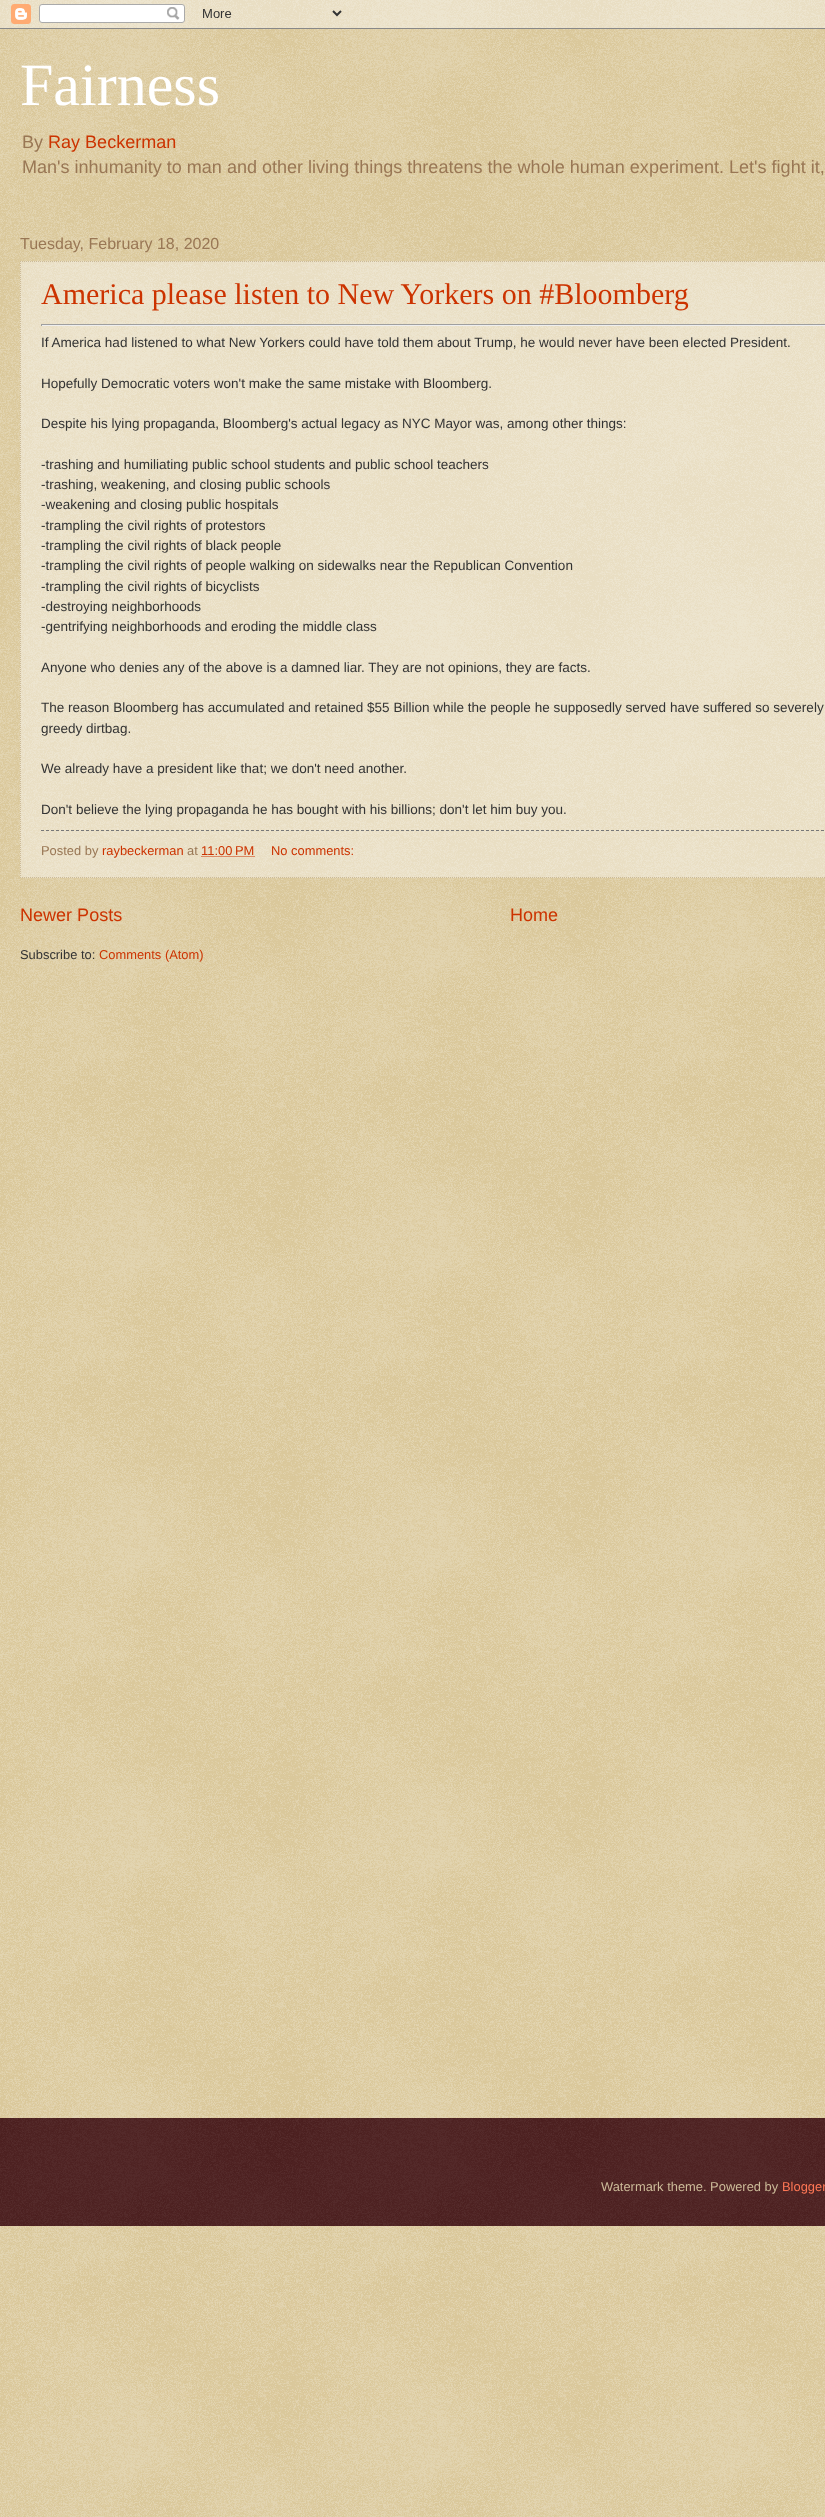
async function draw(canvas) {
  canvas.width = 825;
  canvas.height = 2517;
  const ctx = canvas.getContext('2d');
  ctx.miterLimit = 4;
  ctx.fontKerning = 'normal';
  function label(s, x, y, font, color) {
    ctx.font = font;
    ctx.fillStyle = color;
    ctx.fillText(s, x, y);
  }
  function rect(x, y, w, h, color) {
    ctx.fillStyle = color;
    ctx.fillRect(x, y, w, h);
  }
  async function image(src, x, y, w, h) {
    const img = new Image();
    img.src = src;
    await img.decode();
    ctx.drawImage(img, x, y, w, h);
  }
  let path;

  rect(0, 0, 825, 2517, '#c0a154');
  await image('assets/img1.png', 0, 0, 825, 2517);
  await image('assets/img2.png', 0, 0, 825, 29);
  label('Fairness', 20, 105, '60px Liberation Serif', '#fff');
  label('By', 22, 148, '18.05px Liberation Sans', '#975');
  label('Ray Beckerman', 48, 148, '18.05px Liberation Sans', '#c30');
  label('Man\'s inhumanity to man and other living things threatens the whole human experiment. Let\'s fight it,', 22, 173, '18.05px Liberation Sans', '#975');
  label('Tuesday, February 18, 2020', 20, 249, '16px Liberation Sans', '#975');
  rect(20, 261, 805, 617, '#ffffff66');
  path = new Path2D('M20 261.5H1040');
  ctx.strokeStyle = '#cb9';
  ctx.setLineDash([1, 1]);
  ctx.stroke(path);
  path = new Path2D('M20 877.5H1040');
  ctx.stroke(path);
  path = new Path2D('M20.5 261V878');
  ctx.stroke(path);
  label('America please listen to New Yorkers on #Bloomberg', 41, 304, '30px Liberation Serif', '#c30');
  rect(41, 324, 784, 1, '#9f9f9f');
  rect(41, 325, 784, 1, '#eee');
  rect(41, 324, 1, 2, '#9f9f9f');
  label('If America had listened to what New Yorkers could have told them about Trump, he would never have been elected President.', 41, 347, '13.52px Liberation Sans', '#333');
  label('Hopefully Democratic voters won\'t make the same mistake with Bloomberg.', 41, 388, '13.52px Liberation Sans', '#333');
  label('Despite his lying propaganda, Bloomberg\'s actual legacy as NYC Mayor was, among other things:', 41, 428, '13.52px Liberation Sans', '#333');
  label('-trashing and humiliating public school students and public school teachers', 41, 469, '13.52px Liberation Sans', '#333');
  label('-trashing, weakening, and closing public schools', 41, 489, '13.52px Liberation Sans', '#333');
  label('-weakening and closing public hospitals', 41, 509, '13.52px Liberation Sans', '#333');
  label('-trampling the civil rights of protestors', 41, 530, '13.52px Liberation Sans', '#333');
  label('-trampling the civil rights of black people', 41, 550, '13.52px Liberation Sans', '#333');
  label('-trampling the civil rights of people walking on sidewalks near the Republican Convention', 41, 570, '13.52px Liberation Sans', '#333');
  label('-trampling the civil rights of bicyclists', 41, 591, '13.52px Liberation Sans', '#333');
  label('-destroying neighborhoods', 41, 611, '13.52px Liberation Sans', '#333');
  label('-gentrifying neighborhoods and eroding the middle class', 41, 631, '13.52px Liberation Sans', '#333');
  label('Anyone who denies any of the above is a damned liar. They are not opinions, they are facts.', 41, 672, '13.52px Liberation Sans', '#333');
  label('The reason Bloomberg has accumulated and retained $55 Billion while the people he supposedly served have suffered so severely', 41, 712, '13.52px Liberation Sans', '#333');
  label('greedy dirtbag.', 41, 733, '13.52px Liberation Sans', '#333');
  label('We already have a president like that; we don\'t need another.', 41, 773, '13.52px Liberation Sans', '#333');
  label('Don\'t believe the lying propaganda he has bought with his billions; don\'t let him buy you.', 41, 814, '13.52px Liberation Sans', '#333');
  path = new Path2D('M41 830.5H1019');
  ctx.strokeStyle = '#777';
  ctx.setLineDash([3, 2]);
  ctx.stroke(path);
  label('Posted by', 41, 855, '12.9px Liberation Sans', '#975');
  label('raybeckerman', 102, 855, '12.9px Liberation Sans', '#c30');
  label('at', 187, 855, '12.9px Liberation Sans', '#975');
  label('11:00 PM', 201, 855, '12.9px Liberation Sans', '#c30');
  path = new Path2D('M201.5 856.5H254.5');
  ctx.strokeStyle = '#c30';
  ctx.setLineDash([1, 1]);
  ctx.stroke(path);
  label('No comments:', 271, 855, '12.9px Liberation Sans', '#c30');
  label('Newer Posts', 20, 921, '18.05px Liberation Sans', '#c30');
  label('Home', 510, 921, '18.05px Liberation Sans', '#c30');
  label('Subscribe to:', 20, 959, '12.9px Liberation Sans', '#333');
  label('Comments (Atom)', 99, 959, '12.9px Liberation Sans', '#c30');
  rect(0, 2118, 825, 108, '#300');
  await image('assets/img3.png', 0, 2118, 825, 108);
  label('Watermark theme. Powered by', 601, 2191, '12.9px Liberation Sans', '#cb9');
  label('Blogger', 782, 2191, '12.9px Liberation Sans', '#f75');
}

draw(document.querySelector('canvas'));
